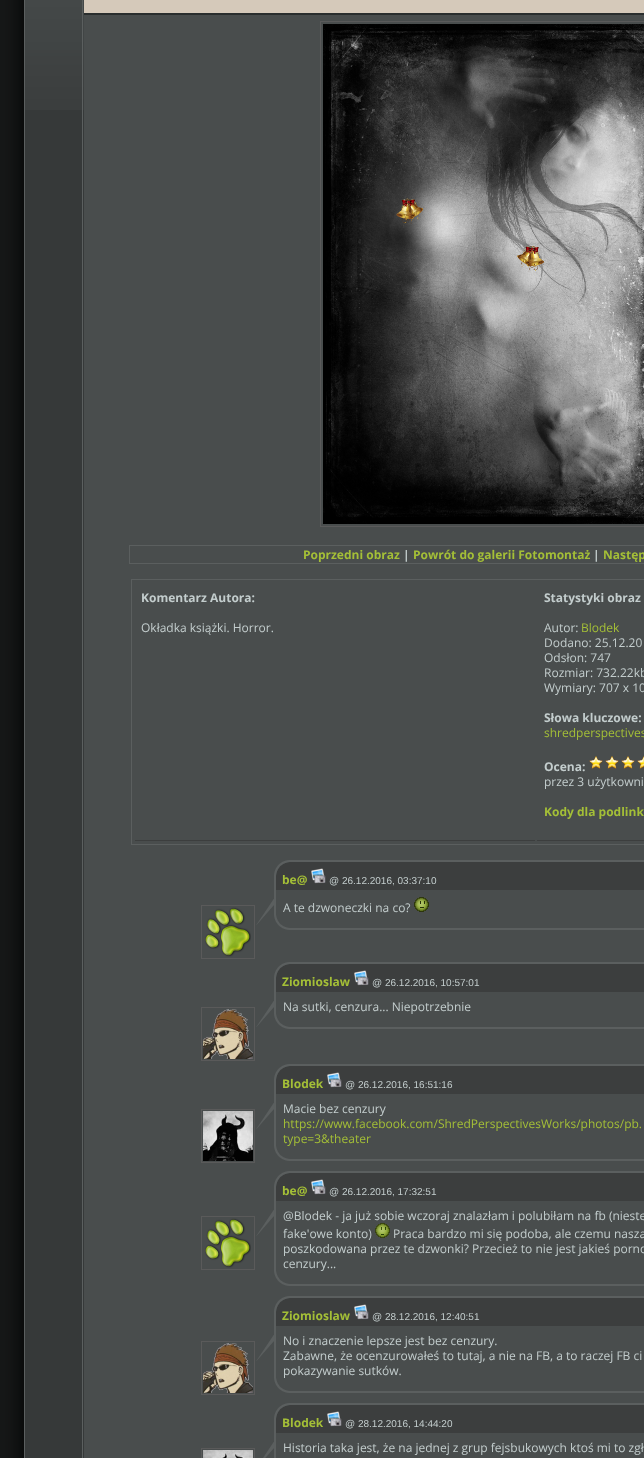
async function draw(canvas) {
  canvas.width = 644;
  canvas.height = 1458;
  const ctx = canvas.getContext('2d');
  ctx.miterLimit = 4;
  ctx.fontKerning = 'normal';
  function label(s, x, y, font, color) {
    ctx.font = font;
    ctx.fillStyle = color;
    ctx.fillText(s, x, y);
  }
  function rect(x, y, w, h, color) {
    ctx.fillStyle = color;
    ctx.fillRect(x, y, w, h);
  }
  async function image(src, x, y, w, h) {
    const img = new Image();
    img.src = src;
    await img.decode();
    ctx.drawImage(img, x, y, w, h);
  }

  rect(0, 0, 644, 1458, '#5b5f5f');
  await image('assets/img1.png', 0, 0, 24, 1458);
  rect(25, 110, 59, 1348, '#363939');
  await image('assets/img2.png', 25, 0, 59, 110);
  ctx.strokeStyle = '#5b5f5f';
  ctx.strokeRect(82.5, -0.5, 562, 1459);
  rect(84, 0, 560, 13, '#d5c9ba');
  rect(84, 13, 560, 2, '#2a2e2e');
  rect(84, 15, 560, 1443, '#494d4d');
  ctx.strokeStyle = '#5a5a5a';
  ctx.strokeRect(320.5, 21.5, 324, 505);
  await image('assets/img3.png', 323, 24, 321, 500);
  ctx.strokeStyle = '#5b5f5f';
  ctx.strokeRect(129.5, 545.5, 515, 18);
  label('Poprzedni obraz', 303, 559, 'bold 12px Open Sans', '#a4bf37');
  label('|', 403, 559, 'bold 12px Open Sans', '#c3cdcd');
  label('Powrót do galerii Fotomontaż', 413, 559, 'bold 12px Open Sans', '#a4bf37');
  label('|', 593, 559, 'bold 12px Open Sans', '#c3cdcd');
  label('Następ', 603, 559, 'bold 12px Open Sans', '#a4bf37');
  ctx.strokeRect(131.5, 579.5, 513, 265);
  rect(135, 840, 400, 1, '#3c3e3e');
  label('Komentarz Autora:', 141, 602, 'bold 12px Open Sans', '#c3cdcd');
  label('Okładka książki. Horror.', 141, 632, '12px Open Sans', '#c3cdcd');
  rect(537, 840, 107, 1, '#3c3e3e');
  label('Statystyki obraz', 544, 602, 'bold 12px Open Sans', '#c3cdcd');
  label('Autor:', 544, 632, '12px Open Sans', '#c3cdcd');
  label('Blodek', 581, 632, '12px Open Sans', '#a4bf37');
  label('Dodano: 25.12.20', 544, 647, '12px Open Sans', '#c3cdcd');
  label('Odsłon: 747', 544, 662, '12px Open Sans', '#c3cdcd');
  label('Rozmiar: 732.22kb', 544, 677, '12px Open Sans', '#c3cdcd');
  label('Wymiary: 707 x 10', 544, 692, '12px Open Sans', '#c3cdcd');
  label('Słowa kluczowe:', 544, 722, 'bold 12px Open Sans', '#c3cdcd');
  label('shredperspectives', 544, 737, '12px Open Sans', '#a4bf37');
  label('Ocena:', 544, 771, 'bold 12px Open Sans', '#c3cdcd');
  await image('assets/img4.png', 589, 756, 14, 14);
  await image('assets/img4.png', 605, 756, 14, 14);
  await image('assets/img4.png', 621, 756, 14, 14);
  await image('assets/img5.png', 637, 756, 7, 14);
  label('przez 3 użytkowni', 544, 786, '12px Open Sans', '#c3cdcd');
  label('Kody dla podlink', 544, 816, 'bold 12px Open Sans', '#a4bf37');
  await image('assets/img6.png', 274, 860, 370, 30);
  label('be@', 282, 884, 'bold 12px Open Sans', '#a4bf37');
  await image('assets/img7.png', 311, 868, 15, 16);
  label('@ 26.12.2016, 03:37:10', 329, 884, '10px Liberation Sans', '#c3cdcd');
  await image('assets/img8.png', 256, 899, 18, 26);
  ctx.strokeStyle = '#5a5a5a';
  ctx.strokeRect(201.5, 905.5, 53, 53);
  await image('assets/img9.png', 205, 907, 46, 50);
  rect(274, 890, 2, 25, '#5b5f5f');
  label('A te dzwoneczki na co?', 283, 912, '12px Open Sans', '#c3cdcd');
  await image('assets/img10.png', 414, 897, 15, 15);
  await image('assets/img11.png', 274, 915, 370, 15);
  await image('assets/img6.png', 274, 962, 370, 30);
  label('Ziomioslaw', 282, 986, 'bold 12px Open Sans', '#a4bf37');
  await image('assets/img7.png', 354, 970, 15, 16);
  label('@ 26.12.2016, 10:57:01', 372, 986, '10px Liberation Sans', '#c3cdcd');
  await image('assets/img8.png', 256, 1001, 18, 26);
  ctx.strokeRect(201.5, 1007.5, 53, 53);
  await image('assets/img12.png', 203, 1009, 50, 50);
  rect(274, 992, 2, 22, '#5b5f5f');
  label('Na sutki, cenzura... Niepotrzebnie', 283, 1011, '12px Open Sans', '#c3cdcd');
  await image('assets/img11.png', 274, 1014, 370, 15);
  await image('assets/img6.png', 274, 1064, 370, 30);
  label('Blodek', 282, 1088, 'bold 12px Open Sans', '#a4bf37');
  await image('assets/img7.png', 327, 1072, 15, 16);
  label('@ 26.12.2016, 16:51:16', 345, 1088, '10px Liberation Sans', '#c3cdcd');
  await image('assets/img8.png', 256, 1103, 18, 26);
  ctx.strokeRect(201.5, 1109.5, 53, 53);
  await image('assets/img13.png', 203, 1111, 50, 50);
  rect(274, 1094, 2, 52, '#5b5f5f');
  label('Macie bez cenzury', 283, 1113, '12px Open Sans', '#c3cdcd');
  label('https://www.facebook.com/ShredPerspectivesWorks/photos/pb.', 283, 1128, '12px Open Sans', '#a4bf37');
  label('type=3&theater', 283, 1143, '12px Open Sans', '#a4bf37');
  await image('assets/img11.png', 274, 1146, 370, 15);
  await image('assets/img6.png', 274, 1171, 370, 30);
  label('be@', 282, 1195, 'bold 12px Open Sans', '#a4bf37');
  await image('assets/img7.png', 311, 1179, 15, 16);
  label('@ 26.12.2016, 17:32:51', 329, 1195, '10px Liberation Sans', '#c3cdcd');
  await image('assets/img8.png', 256, 1210, 18, 26);
  ctx.strokeRect(201.5, 1216.5, 53, 53);
  await image('assets/img9.png', 205, 1218, 46, 50);
  rect(274, 1201, 2, 70, '#5b5f5f');
  label('@Blodek - ja już sobie wczoraj znalazłam i polubiłam na fb (nieste', 283, 1220, '12px Open Sans', '#c3cdcd');
  label('fake\'owe konto)', 283, 1238, '12px Open Sans', '#c3cdcd');
  await image('assets/img14.png', 375, 1223, 15, 15);
  label('Praca bardzo mi się podoba, ale czemu nasza', 393, 1238, '12px Open Sans', '#c3cdcd');
  label('poszkodowana przez te dzwonki? Przecież to nie jest jakieś porno', 283, 1253, '12px Open Sans', '#c3cdcd');
  label('cenzury...', 283, 1268, '12px Open Sans', '#c3cdcd');
  await image('assets/img11.png', 274, 1271, 370, 15);
  await image('assets/img6.png', 274, 1296, 370, 30);
  label('Ziomioslaw', 282, 1320, 'bold 12px Open Sans', '#a4bf37');
  await image('assets/img7.png', 354, 1304, 15, 16);
  label('@ 28.12.2016, 12:40:51', 372, 1320, '10px Liberation Sans', '#c3cdcd');
  await image('assets/img8.png', 256, 1335, 18, 26);
  ctx.strokeRect(201.5, 1341.5, 53, 53);
  await image('assets/img15.png', 203, 1343, 50, 50);
  rect(274, 1326, 2, 52, '#5b5f5f');
  label('No i znaczenie lepsze jest bez cenzury.', 283, 1345, '12px Open Sans', '#c3cdcd');
  label('Zabawne, że ocenzurowałeś to tutaj, a nie na FB, a to raczej FB ci', 283, 1360, '12px Open Sans', '#c3cdcd');
  label('pokazywanie sutków.', 283, 1375, '12px Open Sans', '#c3cdcd');
  await image('assets/img11.png', 274, 1378, 370, 15);
  await image('assets/img6.png', 274, 1403, 370, 30);
  label('Blodek', 282, 1427, 'bold 12px Open Sans', '#a4bf37');
  await image('assets/img7.png', 327, 1411, 15, 16);
  label('@ 28.12.2016, 14:44:20', 345, 1427, '10px Liberation Sans', '#c3cdcd');
  await image('assets/img16.png', 263, 1442, 11, 16);
  ctx.strokeRect(201.5, 1448.5, 53, 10);
  await image('assets/img17.png', 203, 1450, 50, 8);
  rect(274, 1433, 2, 25, '#5b5f5f');
  label('Historia taka jest, że na jednej z grup fejsbukowych ktoś mi to zgł', 283, 1452, '12px Open Sans', '#c3cdcd');
}

draw(document.querySelector('canvas'));
